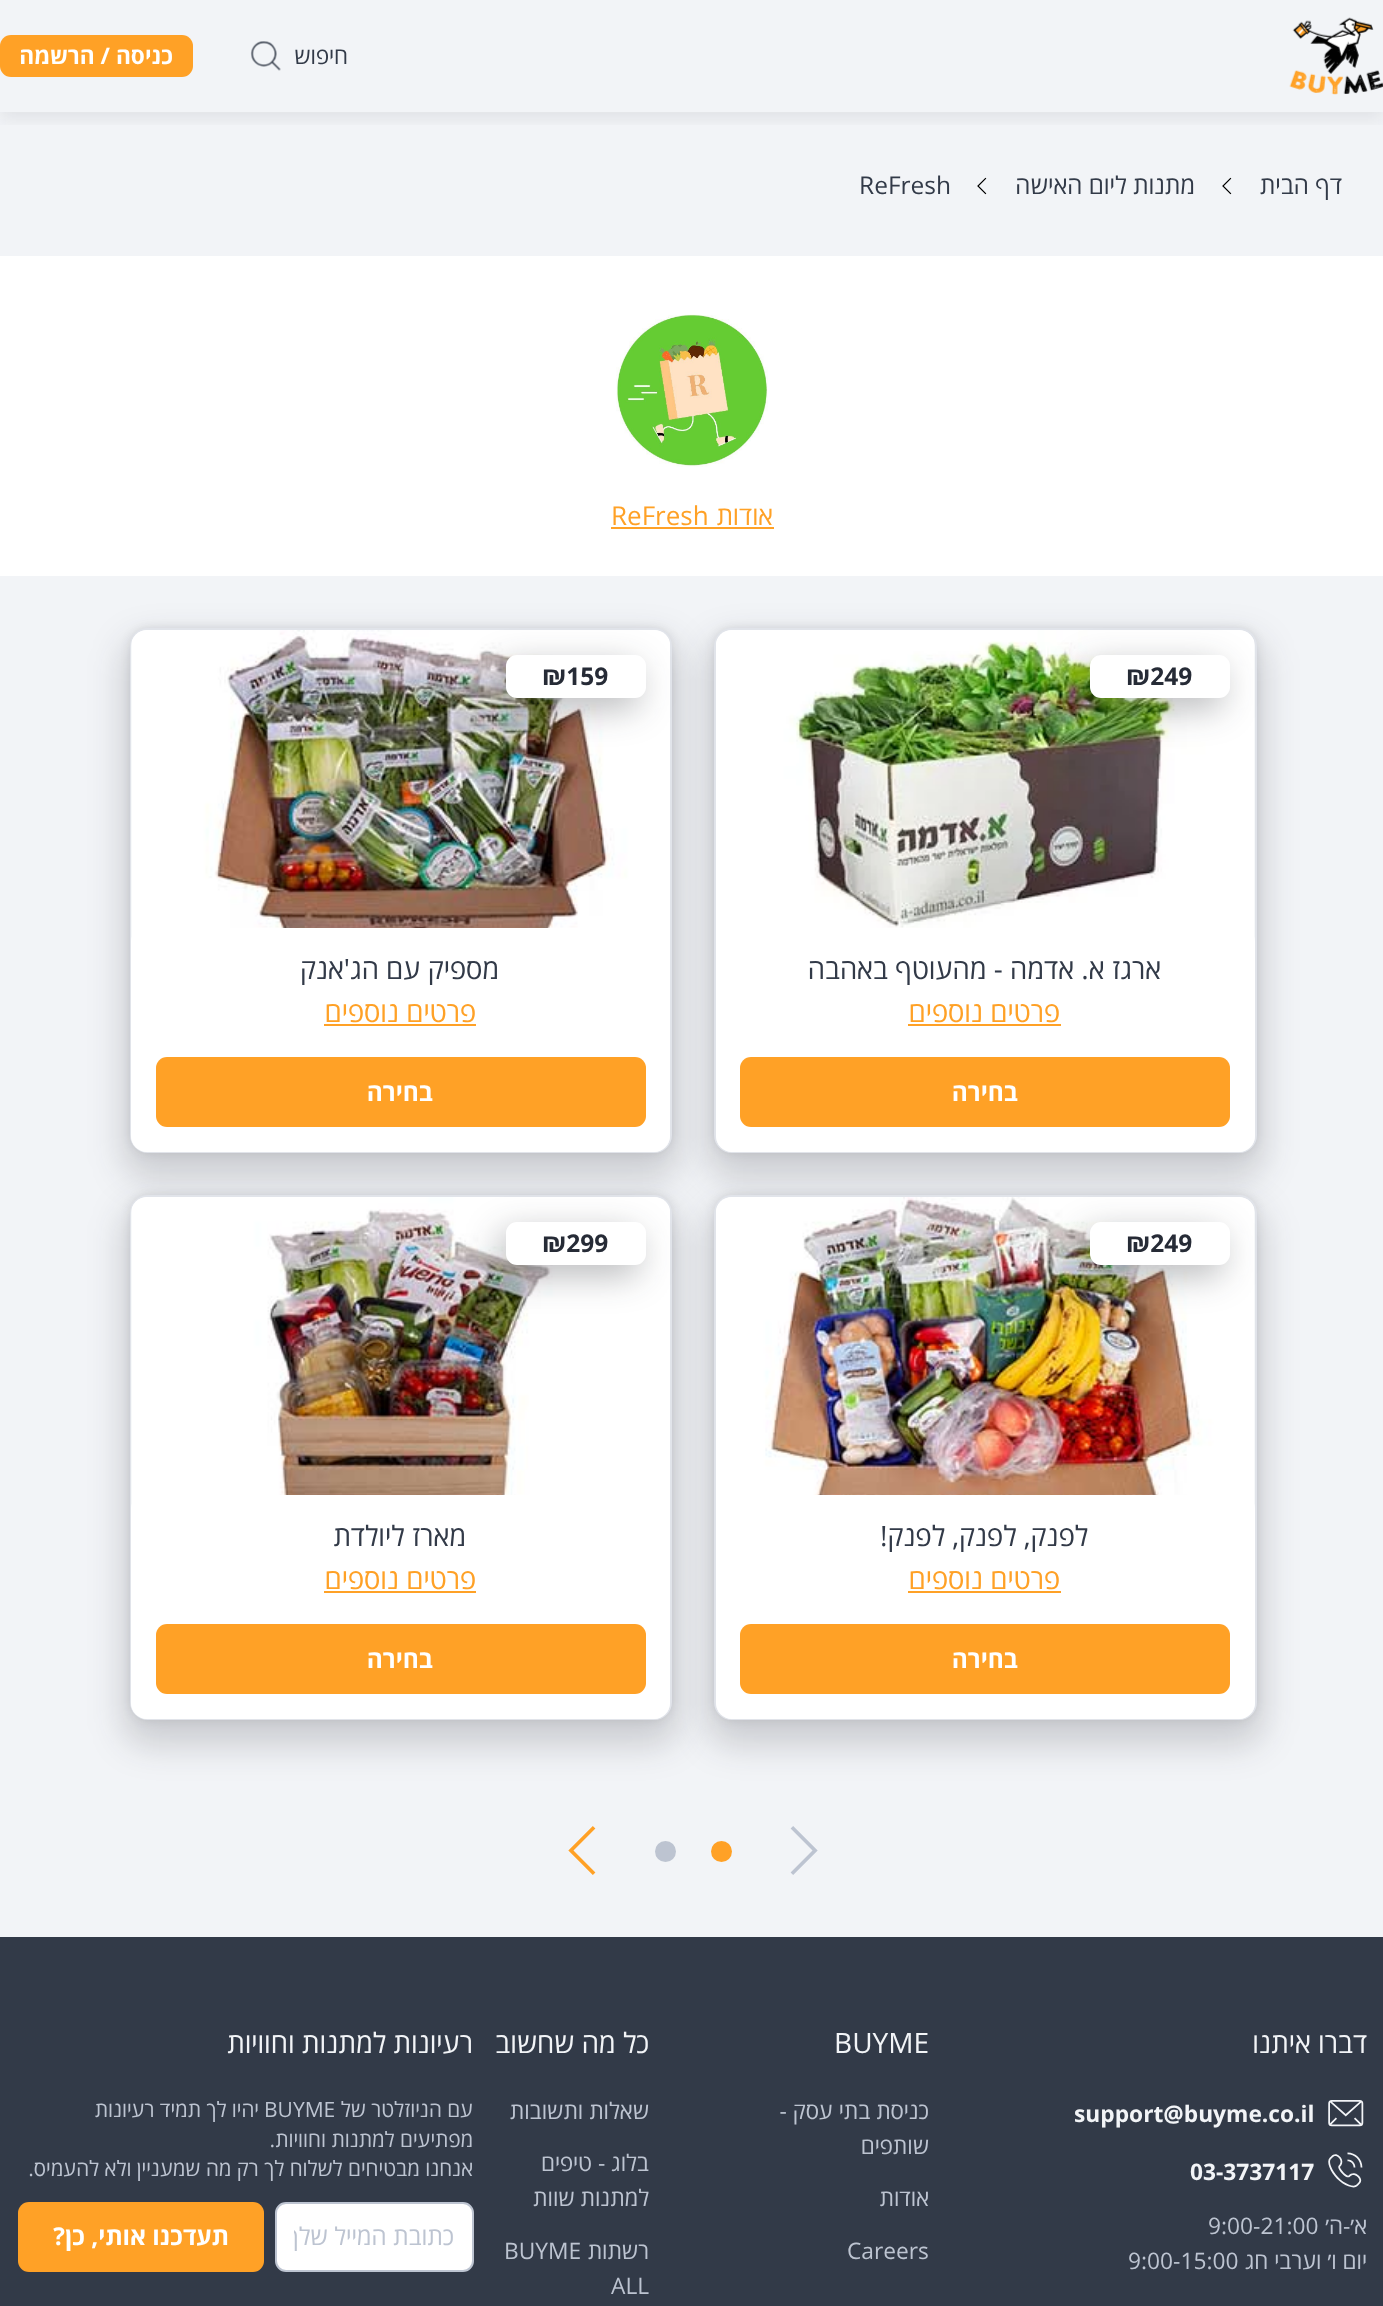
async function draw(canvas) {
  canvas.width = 1383;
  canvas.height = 2306;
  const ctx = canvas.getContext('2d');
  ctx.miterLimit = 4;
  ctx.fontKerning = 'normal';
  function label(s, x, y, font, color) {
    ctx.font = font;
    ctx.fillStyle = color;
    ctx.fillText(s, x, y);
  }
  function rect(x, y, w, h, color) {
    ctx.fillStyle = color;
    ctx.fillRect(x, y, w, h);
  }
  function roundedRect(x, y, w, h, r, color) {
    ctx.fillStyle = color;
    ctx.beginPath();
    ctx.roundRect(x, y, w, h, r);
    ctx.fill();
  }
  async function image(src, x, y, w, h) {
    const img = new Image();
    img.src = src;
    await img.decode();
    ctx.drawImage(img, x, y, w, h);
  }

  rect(0, 0, 1383, 2306, '#f2f4f7');
  ctx.save();
  ctx.beginPath();
  ctx.rect(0, 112, 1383, 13);
  ctx.clip();
  ctx.fillStyle = '#1a1e2514';
  ctx.filter = 'blur(9px)';
  ctx.beginPath();
  ctx.rect(0, 7, 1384, 112);
  ctx.fill();
  ctx.filter = 'none';
  ctx.restore();
  await image('assets/img1.png', 1289, 17, 94, 78);
  ctx.direction = 'rtl';
  label('חיפוש', 348, 64, '22.75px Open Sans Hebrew', '#323a48');
  await image('assets/img2.png', 250, 41, 31, 30);
  roundedRect(0, 35, 193, 42, 11, '#ffa126');
  label('כניסה / הרשמה', 173, 64, 'bold 22.75px Open Sans Hebrew', '#fff');
  label('דף הבית', 1342, 194, '24.5px Open Sans Hebrew', '#323a48');
  await image('assets/img3.png', 1222, 177, 10, 18);
  label('מתנות ליום האישה', 1195, 194, '24.5px Open Sans Hebrew', '#323a48');
  await image('assets/img3.png', 977, 177, 10, 18);
  ctx.direction = 'ltr';
  label('ReFresh', 859, 194, '24.5px Open Sans Hebrew', '#323a48');
  rect(0, 256, 1383, 320, '#fff');
  await image('assets/img4.png', 616, 314, 152, 153);
  ctx.direction = 'rtl';
  label('אודות', 773, 525, '26px Open Sans Hebrew', '#ffa126');
  rect(611, 527, 163, 2, '#ffa126');
  ctx.direction = 'ltr';
  label('ReFresh', 611, 525, '26px Open Sans Hebrew', '#ffa126');
  ctx.fillStyle = '#1a1e251a';
  ctx.filter = 'blur(5px)';
  ctx.beginPath();
  ctx.roundRect(714, 628, 543, 525, 18);
  ctx.fill();
  ctx.filter = 'none';
  ctx.fillStyle = '#1a1e252e';
  ctx.filter = 'blur(17.5px)';
  ctx.beginPath();
  ctx.roundRect(707, 639, 557, 539, 25);
  ctx.fill();
  ctx.filter = 'none';
  ctx.beginPath();
  ctx.roundRect(715, 629, 541, 523, 17);
  ctx.strokeStyle = '#e1e4ea';
  ctx.lineWidth = 2;
  ctx.stroke();
  roundedRect(716, 630, 539, 522, 16, '#f2f4f7');
  await image('assets/img5.png', 716, 630, 539, 312);
  ctx.fillStyle = '#1a1e254d';
  ctx.filter = 'blur(17.5px)';
  ctx.beginPath();
  ctx.roundRect(1083, 665, 140, 44, 11);
  ctx.fill();
  ctx.filter = 'none';
  roundedRect(1090, 655, 140, 43, 11, '#fff');
  label('₪249', 1126, 685, 'bold 24.5px Open Sans Hebrew', '#262b36');
  ctx.fillStyle = '#fff';
  ctx.beginPath();
  ctx.roundRect(716, 928, 539, 224, [14, 14, 16, 16]);
  ctx.fill();
  ctx.save();
  ctx.beginPath();
  ctx.rect(740, 954, 490, 31);
  ctx.clip();
  ctx.direction = 'rtl';
  label('ארגז א. אדמה - מהעוטף באהבה', 1161, 979, '28px Open Sans Hebrew', '#323a48');
  ctx.restore();
  ctx.direction = 'rtl';
  label('פרטים נוספים', 1060, 1022, '28px Open Sans Hebrew', '#ffa126');
  rect(908, 1024, 153, 2, '#ffa126');
  roundedRect(740, 1057, 490, 70, 11, '#ffa126');
  label('בחירה', 1018, 1101, 'bold 24.5px Open Sans Hebrew', '#fff');
  ctx.fillStyle = '#1a1e251a';
  ctx.filter = 'blur(5px)';
  ctx.beginPath();
  ctx.roundRect(130, 628, 542, 525, 18);
  ctx.fill();
  ctx.filter = 'none';
  ctx.fillStyle = '#1a1e252e';
  ctx.filter = 'blur(17.5px)';
  ctx.beginPath();
  ctx.roundRect(123, 639, 556, 539, 25);
  ctx.fill();
  ctx.filter = 'none';
  ctx.beginPath();
  ctx.roundRect(131, 629, 540, 523, 17);
  ctx.stroke();
  roundedRect(131, 630, 539, 522, 16, '#f2f4f7');
  await image('assets/img6.png', 131, 630, 539, 312);
  ctx.fillStyle = '#1a1e254d';
  ctx.filter = 'blur(17.5px)';
  ctx.beginPath();
  ctx.roundRect(499, 665, 140, 44, 11);
  ctx.fill();
  ctx.filter = 'none';
  roundedRect(506, 655, 140, 43, 11, '#fff');
  ctx.direction = 'ltr';
  label('₪159', 542, 685, 'bold 24.5px Open Sans Hebrew', '#262b36');
  ctx.fillStyle = '#fff';
  ctx.beginPath();
  ctx.roundRect(131, 928, 539, 224, [14, 14, 16, 16]);
  ctx.fill();
  ctx.save();
  ctx.beginPath();
  ctx.rect(156, 954, 490, 31);
  ctx.clip();
  ctx.direction = 'rtl';
  label('מספיק עם הג\'אנק', 499, 979, '28px Open Sans Hebrew', '#323a48');
  ctx.restore();
  ctx.direction = 'rtl';
  label('פרטים נוספים', 476, 1022, '28px Open Sans Hebrew', '#ffa126');
  rect(324, 1024, 152, 2, '#ffa126');
  roundedRect(156, 1057, 490, 70, 11, '#ffa126');
  label('בחירה', 433, 1101, 'bold 24.5px Open Sans Hebrew', '#fff');
  ctx.fillStyle = '#1a1e251a';
  ctx.filter = 'blur(5px)';
  ctx.beginPath();
  ctx.roundRect(714, 1195, 543, 525, 18);
  ctx.fill();
  ctx.filter = 'none';
  ctx.fillStyle = '#1a1e252e';
  ctx.filter = 'blur(17.5px)';
  ctx.beginPath();
  ctx.roundRect(707, 1206, 557, 539, 25);
  ctx.fill();
  ctx.filter = 'none';
  ctx.beginPath();
  ctx.roundRect(715, 1196, 541, 523, 17);
  ctx.stroke();
  roundedRect(716, 1197, 539, 522, 16, '#f2f4f7');
  await image('assets/img7.png', 716, 1197, 539, 312);
  ctx.fillStyle = '#1a1e254d';
  ctx.filter = 'blur(17.5px)';
  ctx.beginPath();
  ctx.roundRect(1083, 1232, 140, 44, 11);
  ctx.fill();
  ctx.filter = 'none';
  roundedRect(1090, 1222, 140, 43, 11, '#fff');
  ctx.direction = 'ltr';
  label('₪249', 1126, 1252, 'bold 24.5px Open Sans Hebrew', '#262b36');
  ctx.fillStyle = '#fff';
  ctx.beginPath();
  ctx.roundRect(716, 1495, 539, 224, [14, 14, 16, 16]);
  ctx.fill();
  ctx.save();
  ctx.beginPath();
  ctx.rect(740, 1521, 490, 31);
  ctx.clip();
  ctx.direction = 'rtl';
  label('לפנק, לפנק, לפנק!', 1088, 1546, '28px Open Sans Hebrew', '#323a48');
  ctx.restore();
  ctx.direction = 'rtl';
  label('פרטים נוספים', 1060, 1589, '28px Open Sans Hebrew', '#ffa126');
  rect(908, 1591, 153, 2, '#ffa126');
  roundedRect(740, 1624, 490, 70, 11, '#ffa126');
  label('בחירה', 1018, 1668, 'bold 24.5px Open Sans Hebrew', '#fff');
  ctx.fillStyle = '#1a1e251a';
  ctx.filter = 'blur(5px)';
  ctx.beginPath();
  ctx.roundRect(130, 1195, 542, 525, 18);
  ctx.fill();
  ctx.filter = 'none';
  ctx.fillStyle = '#1a1e252e';
  ctx.filter = 'blur(17.5px)';
  ctx.beginPath();
  ctx.roundRect(123, 1206, 556, 539, 25);
  ctx.fill();
  ctx.filter = 'none';
  ctx.beginPath();
  ctx.roundRect(131, 1196, 540, 523, 17);
  ctx.stroke();
  roundedRect(131, 1197, 539, 522, 16, '#f2f4f7');
  await image('assets/img8.png', 131, 1197, 539, 312);
  ctx.fillStyle = '#1a1e254d';
  ctx.filter = 'blur(17.5px)';
  ctx.beginPath();
  ctx.roundRect(499, 1232, 140, 44, 11);
  ctx.fill();
  ctx.filter = 'none';
  roundedRect(506, 1222, 140, 43, 11, '#fff');
  ctx.direction = 'ltr';
  label('₪299', 542, 1252, 'bold 24.5px Open Sans Hebrew', '#262b36');
  ctx.fillStyle = '#fff';
  ctx.beginPath();
  ctx.roundRect(131, 1495, 539, 224, [14, 14, 16, 16]);
  ctx.fill();
  ctx.direction = 'rtl';
  label('מארז ליולדת', 466, 1546, '28px Open Sans Hebrew', '#323a48');
  label('פרטים נוספים', 476, 1589, '28px Open Sans Hebrew', '#ffa126');
  rect(324, 1591, 152, 2, '#ffa126');
  roundedRect(156, 1624, 490, 70, 11, '#ffa126');
  label('בחירה', 433, 1668, 'bold 24.5px Open Sans Hebrew', '#fff');
  await image('assets/img9.png', 790, 1826, 28, 49);
  ctx.fillStyle = '#ffa126';
  ctx.beginPath();
  ctx.arc(721.5, 1851.5, 10.5, 0, 2 * Math.PI);
  ctx.fill();
  ctx.fillStyle = '#bdc4d1';
  ctx.beginPath();
  ctx.arc(665.5, 1851.5, 10.5, 0, 2 * Math.PI);
  ctx.fill();
  await image('assets/img10.png', 568, 1826, 28, 49);
  rect(0, 1937, 1383, 369, '#323a48');
  label('דברו איתנו', 1367, 2053, '28px Open Sans Hebrew', '#f2f4f7');
  await image('assets/img11.png', 1328, 2100, 36, 27);
  ctx.direction = 'ltr';
  label('support@buyme.co.il', 1074, 2122, 'bold 22.75px Open Sans Hebrew', '#f2f4f7');
  await image('assets/img12.png', 1328, 2152, 35, 36);
  label('03-3737117', 1190, 2180, 'bold 22.75px Open Sans Hebrew', '#f2f4f7');
  ctx.direction = 'rtl';
  label('א׳-ה׳', 1367, 2234, '22.75px Open Sans Hebrew', '#bdc4d1');
  ctx.direction = 'ltr';
  label('9:00-21:00', 1208, 2234, '22.75px Open Sans Hebrew', '#bdc4d1');
  ctx.direction = 'rtl';
  label('יום ו׳ וערבי חג', 1367, 2269, '22.75px Open Sans Hebrew', '#bdc4d1');
  ctx.direction = 'ltr';
  label('9:00-15:00', 1128, 2269, '22.75px Open Sans Hebrew', '#bdc4d1');
  label('BUYME', 834, 2053, '28px Open Sans Hebrew', '#f2f4f7');
  ctx.direction = 'rtl';
  label('כניסת בתי עסק -', 929, 2119, '22.75px Open Sans Hebrew', '#bdc4d1');
  label('שותפים', 929, 2154, '22.75px Open Sans Hebrew', '#bdc4d1');
  label('אודות', 929, 2206, '22.75px Open Sans Hebrew', '#bdc4d1');
  ctx.direction = 'ltr';
  label('Careers', 847, 2259, '22.75px Open Sans Hebrew', '#bdc4d1');
  ctx.direction = 'rtl';
  label('כל מה שחשוב', 649, 2053, '28px Open Sans Hebrew', '#f2f4f7');
  label('שאלות ותשובות', 649, 2119, '22.75px Open Sans Hebrew', '#bdc4d1');
  label('בלוג - טיפים', 649, 2171, '22.75px Open Sans Hebrew', '#bdc4d1');
  label('למתנות שוות', 649, 2206, '22.75px Open Sans Hebrew', '#bdc4d1');
  label('רשתות', 649, 2259, '22.75px Open Sans Hebrew', '#bdc4d1');
  ctx.direction = 'ltr';
  label('BUYME', 504, 2259, '22.75px Open Sans Hebrew', '#bdc4d1');
  label('ALL', 611, 2294, '22.75px Open Sans Hebrew', '#bdc4d1');
  ctx.direction = 'rtl';
  label('רעיונות למתנות וחוויות', 473, 2053, '28px Open Sans Hebrew', '#f2f4f7');
  label('עם הניוזלטר של', 473, 2117, '21px Open Sans Hebrew', '#bdc4d1');
  ctx.direction = 'ltr';
  label('BUYME', 264, 2117, '21px Open Sans Hebrew', '#bdc4d1');
  ctx.direction = 'rtl';
  label('יהיו לך תמיד רעיונות', 259, 2117, '21px Open Sans Hebrew', '#bdc4d1');
  label('מפתיעים למתנות וחוויות.', 473, 2147, '21px Open Sans Hebrew', '#bdc4d1');
  label('אנחנו מבטיחים לשלוח לך רק מה שמעניין ולא להעמיס.', 473, 2176, '21px Open Sans Hebrew', '#bdc4d1');
  ctx.fillStyle = '#fff';
  ctx.beginPath();
  ctx.roundRect(276, 2203, 197, 68, 10);
  ctx.fill();
  ctx.strokeStyle = '#bdc4d1';
  ctx.stroke();
  ctx.save();
  ctx.beginPath();
  ctx.rect(294, 2219, 161, 33);
  ctx.clip();
  label('כתובת המייל שלך', 454, 2245, '24.5px Open Sans Hebrew', '#bdc4d1');
  ctx.restore();
  roundedRect(18, 2202, 246, 70, 11, '#ffa126');
  label('תעדכנו אותי, כן?', 229, 2245, 'bold 24.5px Open Sans Hebrew', '#fff');
}

draw(document.querySelector('canvas'));
